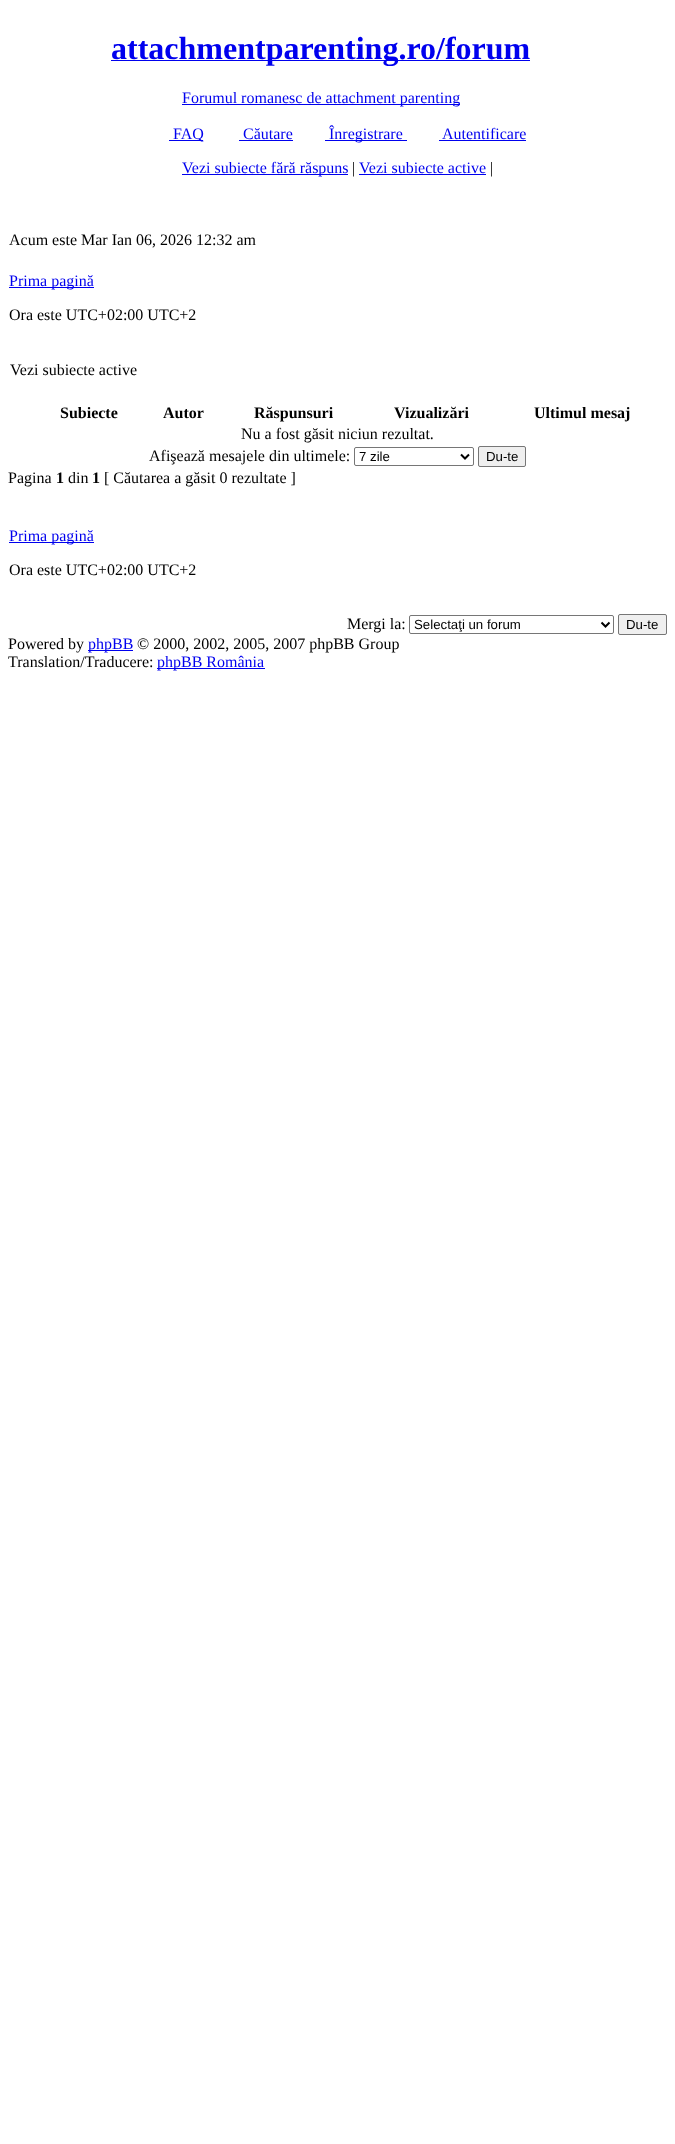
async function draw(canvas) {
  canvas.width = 675;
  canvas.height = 2144;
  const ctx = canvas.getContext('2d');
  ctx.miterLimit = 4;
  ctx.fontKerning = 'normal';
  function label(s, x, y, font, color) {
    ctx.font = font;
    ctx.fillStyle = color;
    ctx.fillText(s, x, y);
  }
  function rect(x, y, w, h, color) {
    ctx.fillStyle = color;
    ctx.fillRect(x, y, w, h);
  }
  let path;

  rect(0, 0, 675, 2144, '#fff');
  rect(111, 60, 419, 1, '#00e');
  label('attachmentparenting.ro/forum', 111, 59, 'bold 32px Liberation Serif', '#00e');
  rect(182, 104, 278, 1, '#00e');
  label('Forumul romanesc de attachment parenting', 182, 103, '16px Liberation Serif', '#00e');
  rect(169, 140, 34, 1, '#00e');
  label('FAQ', 173, 139, '16px Liberation Serif', '#00e');
  label('Căutare', 243, 139, '16px Liberation Serif', '#00e');
  rect(239, 140, 54, 1, '#00e');
  rect(325, 140, 82, 1, '#00e');
  label('Înregistrare', 329, 139, '16px Liberation Serif', '#00e');
  label('Autentificare', 442, 139, '16px Liberation Serif', '#00e');
  rect(439, 140, 87, 1, '#00e');
  rect(182, 174, 166, 1, '#00e');
  label('Vezi subiecte fără răspuns', 182, 173, '16px Liberation Serif', '#00e');
  label('|', 352, 173, '16px Liberation Serif', '#000');
  label('Vezi subiecte active', 359, 173, '16px Liberation Serif', '#00e');
  rect(359, 174, 127, 1, '#00e');
  label('|', 490, 173, '16px Liberation Serif', '#000');
  label('Acum este Mar Ian 06, 2026 12:32 am', 9, 245, '16px Liberation Serif', '#000');
  rect(9, 287, 85, 1, '#00e');
  label('Prima pagină', 9, 286, '16px Liberation Serif', '#00e');
  label('Ora este UTC+02:00 UTC+2', 9, 320, '16px Liberation Serif', '#000');
  label('Vezi subiecte active', 10, 375, '16px Liberation Serif', '#000');
  label('Subiecte', 60, 418, 'bold 16px Liberation Serif', '#000');
  label('Autor', 163, 418, 'bold 16px Liberation Serif', '#000');
  label('Răspunsuri', 254, 418, 'bold 16px Liberation Serif', '#000');
  label('Vizualizări', 394, 418, 'bold 16px Liberation Serif', '#000');
  label('Ultimul mesaj', 534, 418, 'bold 16px Liberation Serif', '#000');
  label('Nu a fost găsit niciun rezultat.', 241, 439, '16px Liberation Serif', '#000');
  label('Afişează mesajele din ultimele:', 149, 461, '16px Liberation Serif', '#000');
  ctx.beginPath();
  ctx.roundRect(354.5, 447.5, 119, 18, 1.5);
  ctx.strokeStyle = '#767676';
  ctx.stroke();
  path = new Path2D('M461 454.5L465 458.5L469 454.5');
  ctx.strokeStyle = '#000';
  ctx.lineWidth = 2;
  ctx.stroke(path);
  label('7 zile', 359, 461, '13.25px Liberation Sans', '#000');
  ctx.fillStyle = '#efefef';
  ctx.beginPath();
  ctx.roundRect(478.5, 446.5, 47, 20, 1.5);
  ctx.fill();
  ctx.strokeStyle = '#767676';
  ctx.lineWidth = 1;
  ctx.stroke();
  label('Du-te', 486, 461, '13.25px Liberation Sans', '#000');
  label('Pagina', 8, 483, '16px Liberation Serif', '#000');
  label('1', 56, 483, 'bold 16px Liberation Serif', '#000');
  label('din', 68, 483, '16px Liberation Serif', '#000');
  label('1', 92, 483, 'bold 16px Liberation Serif', '#000');
  label('[ Căutarea a găsit 0 rezultate ]', 104, 483, '16px Liberation Serif', '#000');
  rect(9, 542, 85, 1, '#00e');
  label('Prima pagină', 9, 541, '16px Liberation Serif', '#00e');
  label('Ora este UTC+02:00 UTC+2', 9, 575, '16px Liberation Serif', '#000');
  label('Mergi la:', 347, 629, '16px Liberation Serif', '#000');
  ctx.beginPath();
  ctx.roundRect(409.5, 615.5, 204, 18, 1.5);
  ctx.stroke();
  path = new Path2D('M601.5 622.5L605.5 626.5L609.5 622.5');
  ctx.strokeStyle = '#000';
  ctx.lineWidth = 2;
  ctx.stroke(path);
  label('Selectaţi un forum', 414, 629, '13.25px Liberation Sans', '#000');
  ctx.fillStyle = '#efefef';
  ctx.beginPath();
  ctx.roundRect(618.5, 614.5, 48, 20, 1.5);
  ctx.fill();
  ctx.strokeStyle = '#767676';
  ctx.lineWidth = 1;
  ctx.stroke();
  label('Du-te', 626, 629, '13.25px Liberation Sans', '#000');
  label('Powered by', 8, 649, '16px Liberation Serif', '#000');
  rect(88, 650, 45, 1, '#00e');
  label('phpBB', 88, 649, '16px Liberation Serif', '#00e');
  label('© 2000, 2002, 2005, 2007 phpBB Group', 137, 649, '16px Liberation Serif', '#000');
  label('Translation/Traducere:', 8, 667, '16px Liberation Serif', '#000');
  rect(157, 668, 108, 1, '#00e');
  label('phpBB România', 157, 667, '16px Liberation Serif', '#00e');
}

draw(document.querySelector('canvas'));
